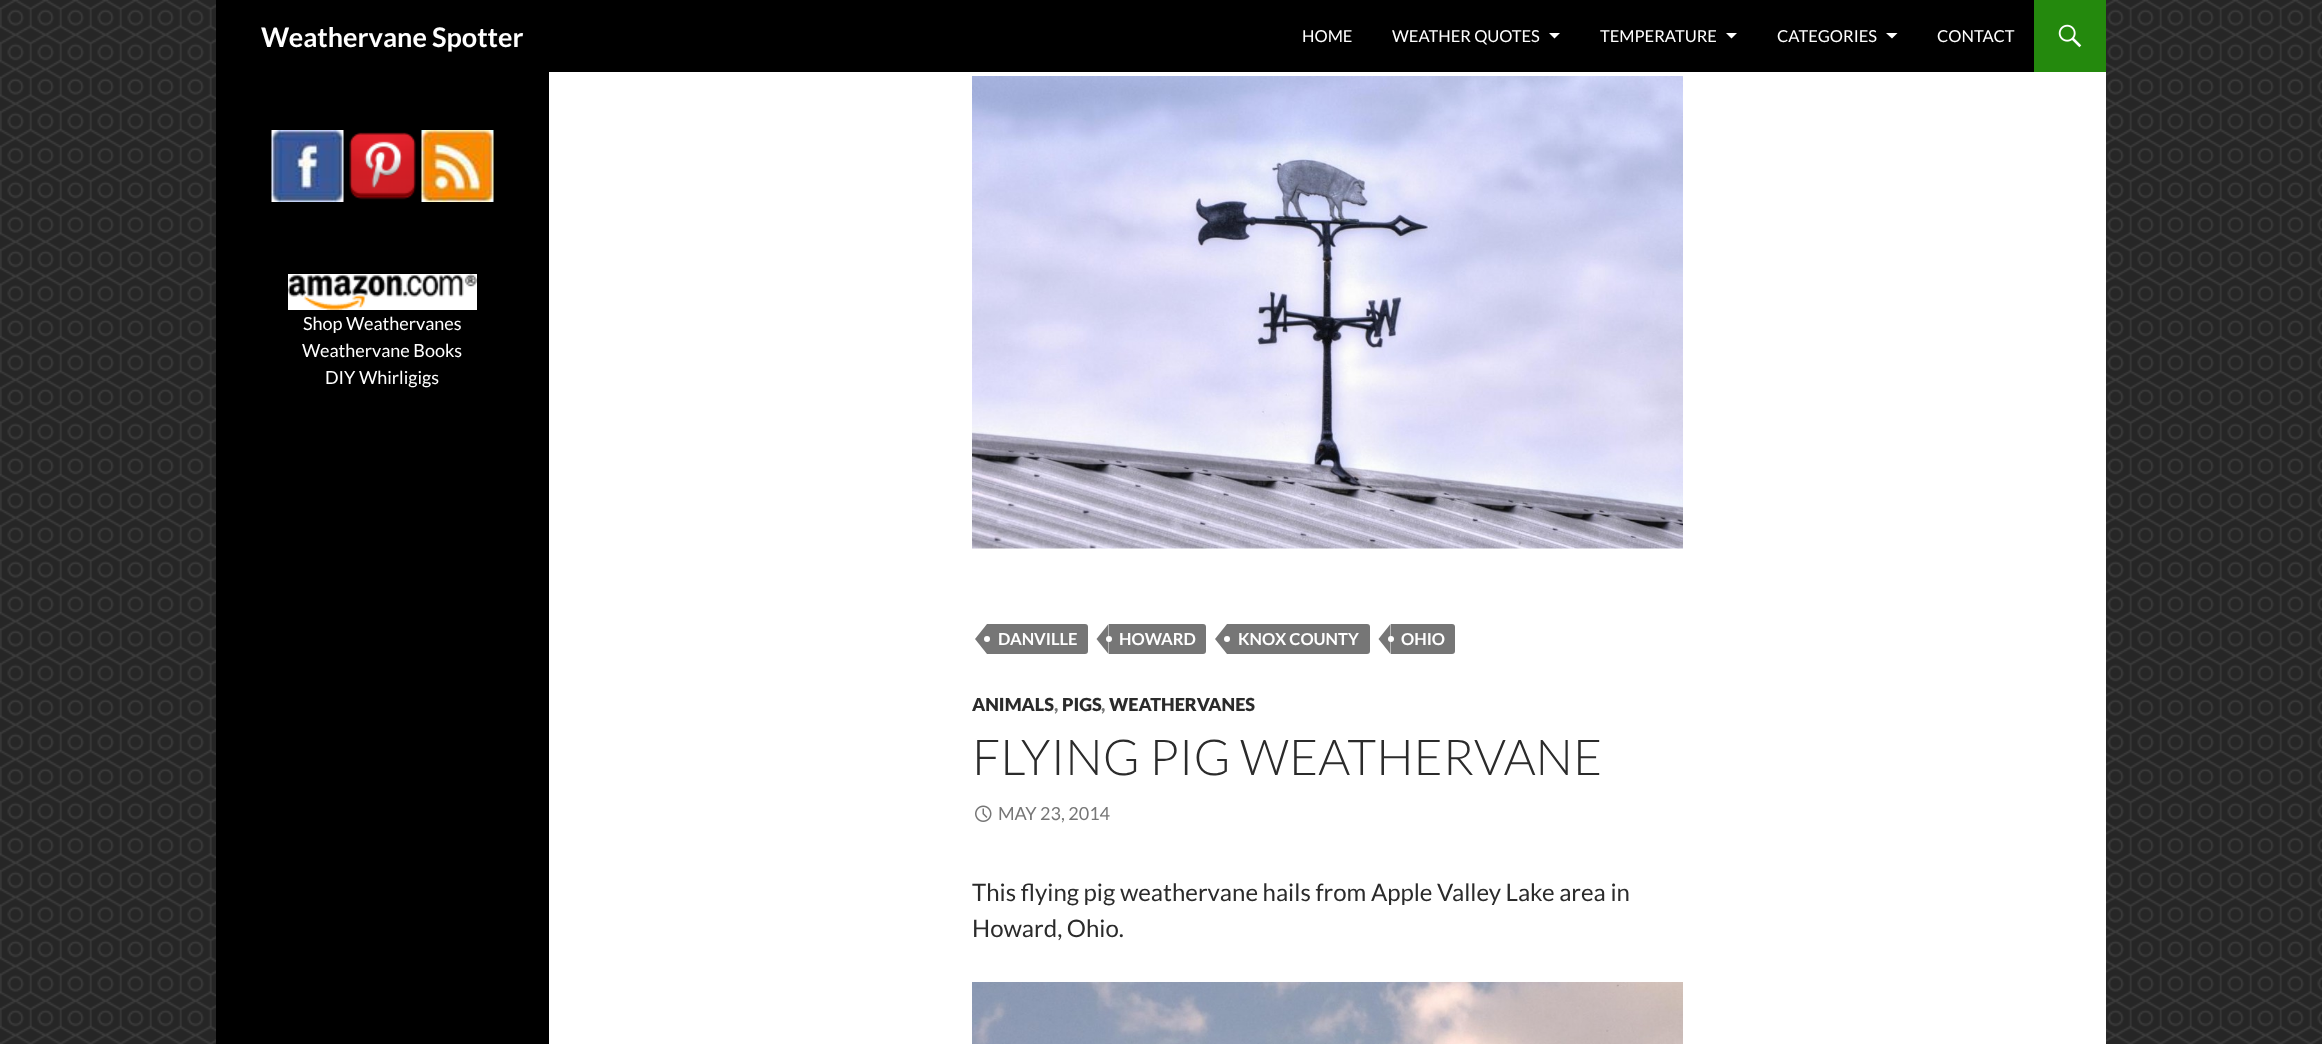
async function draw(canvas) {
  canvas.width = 2322;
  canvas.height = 1044;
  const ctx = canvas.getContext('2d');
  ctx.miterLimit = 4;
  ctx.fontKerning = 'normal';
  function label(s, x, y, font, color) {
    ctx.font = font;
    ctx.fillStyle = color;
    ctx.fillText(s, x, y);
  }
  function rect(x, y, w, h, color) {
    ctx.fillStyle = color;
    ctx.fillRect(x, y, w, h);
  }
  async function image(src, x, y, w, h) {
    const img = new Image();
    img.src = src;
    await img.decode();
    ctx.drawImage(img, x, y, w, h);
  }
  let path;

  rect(0, 0, 2322, 1044, '#fff');
  await image('assets/img1.png', 0, 0, 2322, 1044);
  rect(549, 72, 1557, 972, '#fff');
  rect(216, 0, 1818, 72, '#000');
  label('Weathervane Spotter', 261, 47, 'bold 27px Lato', '#fff');
  label('HOME', 1302, 42, '16.5px Lato', '#fff');
  label('WEATHER QUOTES', 1392, 42, '16.5px Lato', '#fff');
  path = new Path2D('M1549 33L1554.5 38.5L1560 33Z');
  ctx.fill(path);
  label('TEMPERATURE', 1600, 42, '16.5px Lato', '#fff');
  path = new Path2D('M1726 33L1731.5 38.5L1737 33Z');
  ctx.fill(path);
  label('CATEGORIES', 1777, 42, '16.5px Lato', '#fff');
  path = new Path2D('M1886 33L1892 38.5L1897.5 33Z');
  ctx.fill(path);
  label('CONTACT', 1937, 42, '16.5px Lato', '#fff');
  rect(2034, 0, 72, 72, '#24890d');
  await image('assets/img2.png', 2058, 24, 24, 24);
  rect(216, 72, 333, 972, '#000');
  await image('assets/img3.png', 271, 130, 73, 72);
  await image('assets/img4.png', 349, 132, 67, 68);
  await image('assets/img5.png', 421, 130, 73, 72);
  await image('assets/img6.png', 288, 274, 189, 36);
  label('Shop Weathervanes', 303, 330, '18px Lato', '#fff');
  label('Weathervane Books', 302, 357, '18px Lato', '#fff');
  label('DIY Whirligigs', 325, 384, '18px Lato', '#fff');
  await image('assets/img7.png', 972, 76, 711, 473);
  ctx.fillStyle = '#767676';
  ctx.beginPath();
  ctx.roundRect(987, 624, 101, 30, [0, 3, 3, 0]);
  ctx.fill();
  path = new Path2D('M987 624V654L975 639Z');
  ctx.fill(path);
  label('DANVILLE', 998, 645, 'bold 16.5px Lato', '#fff');
  ctx.beginPath();
  ctx.arc(987, 639, 3, 0, 2 * Math.PI);
  ctx.fill();
  ctx.fillStyle = '#767676';
  ctx.beginPath();
  ctx.roundRect(1109, 624, 97, 30, [0, 3, 3, 0]);
  ctx.fill();
  path = new Path2D('M1108.5 624V654L1096.5 639Z');
  ctx.fill(path);
  label('HOWARD', 1119, 645, 'bold 16.5px Lato', '#fff');
  ctx.beginPath();
  ctx.arc(1109, 639, 3, 0, 2 * Math.PI);
  ctx.fill();
  ctx.fillStyle = '#767676';
  ctx.beginPath();
  ctx.roundRect(1227, 624, 143, 30, [0, 3, 3, 0]);
  ctx.fill();
  path = new Path2D('M1227 624V654L1215 639Z');
  ctx.fill(path);
  label('KNOX COUNTY', 1238, 645, 'bold 16.5px Lato', '#fff');
  ctx.beginPath();
  ctx.arc(1227, 639, 3, 0, 2 * Math.PI);
  ctx.fill();
  ctx.fillStyle = '#767676';
  ctx.beginPath();
  ctx.roundRect(1391, 624, 64, 30, [0, 3, 3, 0]);
  ctx.fill();
  path = new Path2D('M1390.5 624V654L1378.5 639Z');
  ctx.fill(path);
  label('OHIO', 1401, 645, 'bold 16.5px Lato', '#fff');
  ctx.beginPath();
  ctx.arc(1391, 639, 3, 0, 2 * Math.PI);
  ctx.fill();
  label('ANIMALS', 972, 711, '900 18px Lato', '#2b2b2b');
  label(',', 1054, 711, '900 18px Lato', '#767676');
  label('PIGS', 1062, 711, '900 18px Lato', '#2b2b2b');
  label(',', 1101, 711, '900 18px Lato', '#767676');
  label('WEATHERVANES', 1109, 711, '900 18px Lato', '#2b2b2b');
  label('FLYING PIG WEATHERVANE', 972, 775, '300 49.5px Lato', '#2b2b2b');
  await image('assets/img8.png', 975, 805, 17, 17);
  label('MAY 23, 2014', 998, 820, '18px Lato', '#767676');
  label('This flying pig weathervane hails from Apple Valley Lake area in', 972, 901, '24px Lato', '#2b2b2b');
  label('Howard, Ohio.', 972, 937, '24px Lato', '#2b2b2b');
  await image('assets/img9.png', 972, 982, 711, 62);
}

draw(document.querySelector('canvas'));
